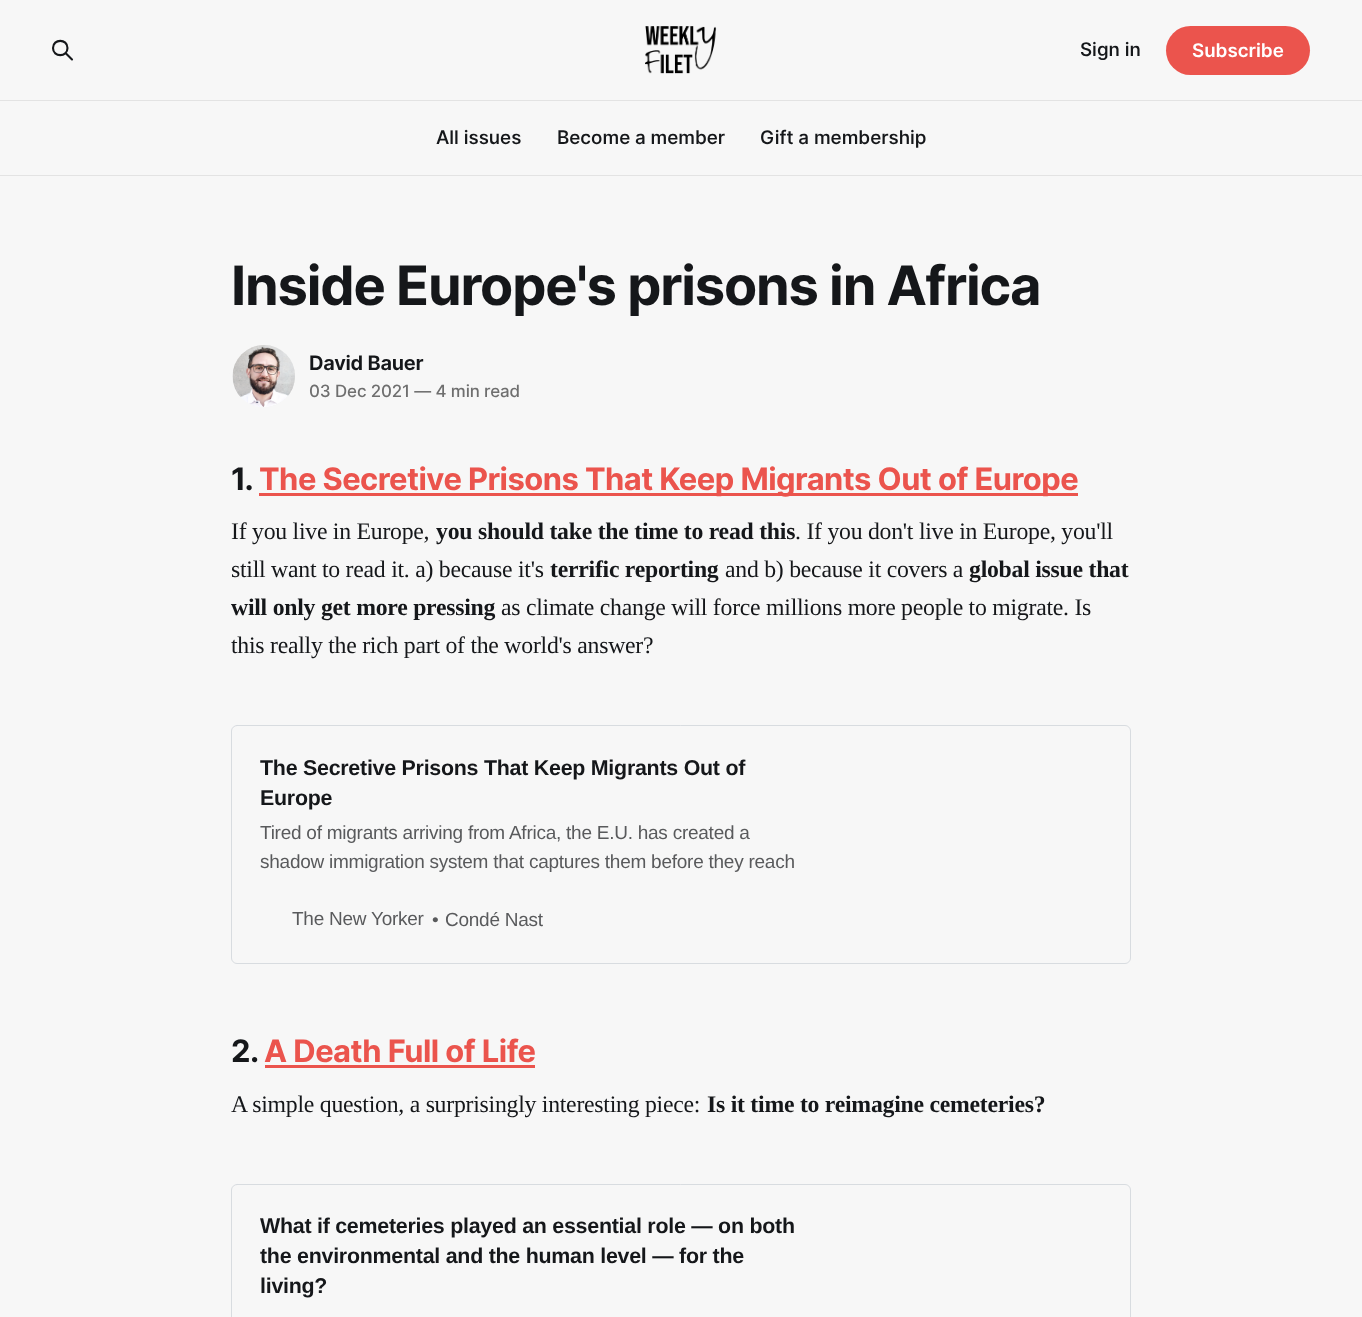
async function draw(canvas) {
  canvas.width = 1362;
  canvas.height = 1317;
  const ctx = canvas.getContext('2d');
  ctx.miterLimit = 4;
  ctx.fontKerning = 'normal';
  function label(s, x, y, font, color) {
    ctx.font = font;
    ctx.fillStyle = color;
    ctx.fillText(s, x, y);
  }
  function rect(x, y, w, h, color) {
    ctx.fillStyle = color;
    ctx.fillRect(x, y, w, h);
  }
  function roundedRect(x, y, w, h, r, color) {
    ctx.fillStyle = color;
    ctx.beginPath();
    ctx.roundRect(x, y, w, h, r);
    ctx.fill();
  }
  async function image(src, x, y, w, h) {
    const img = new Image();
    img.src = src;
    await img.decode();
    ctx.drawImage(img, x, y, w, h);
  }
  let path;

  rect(0, 0, 1362, 1317, '#f7f7f7');
  await image('assets/img1.png', 645, 26, 72, 48);
  path = new Path2D('M72 59.5L65.5 53M67.5 48C67.5 57.5 53 57.5 53 48C53 38.5 67.5 38.5 67.5 48Z');
  ctx.strokeStyle = '#15171a';
  ctx.lineWidth = 2.1;
  ctx.lineCap = 'round';
  ctx.lineJoin = 'round';
  ctx.stroke(path);
  label('Sign in', 1080, 56, '500 18.75px "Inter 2"', '#15171a');
  roundedRect(1166, 26, 144, 49, 24.5, '#eb544d');
  label('Subscribe', 1192, 57, '600 18.75px "Inter 2"', '#fff');
  rect(0, 100, 1362, 1, '#e3e3e3');
  label('All issues', 436, 144, '500 18.75px "Inter 2"', '#15171a');
  label('Become a member', 557, 144, '500 18.75px "Inter 2"', '#15171a');
  label('Gift a membership', 760, 144, '500 18.75px "Inter 2"', '#15171a');
  rect(0, 175, 1362, 1, '#e3e3e3');
  ctx.letterSpacing = '-1.2px';
  label('Inside Europe\'s prisons in Africa', 231, 305, 'bold 54.2px Inter', '#15171a');
  ctx.fillStyle = '#e6e6e6';
  ctx.beginPath();
  ctx.arc(264, 376, 33, 0, 2 * Math.PI);
  ctx.fill();
  ctx.strokeStyle = '#f7f7f7';
  ctx.lineWidth = 4;
  ctx.stroke();
  await image('assets/img2.png', 232, 345, 63, 62);
  ctx.letterSpacing = '-0.25px';
  label('David Bauer', 309, 370, '600 20px Inter', '#15171a');
  ctx.letterSpacing = '-0.1px';
  label('03 Dec 2021 — 4 min read', 309, 397, '500 16.9px Inter', '#6f6f6f');
  ctx.letterSpacing = '-0.52px';
  label('1.', 231, 490, 'bold 30.9px Inter', '#15171a');
  rect(259, 493, 819, 3, '#eb544d');
  label('The Secretive Prisons That Keep Migrants Out of Europe', 259, 490, 'bold 30.9px Inter', '#eb544d');
  ctx.letterSpacing = '-0.25px';
  label('If you live in Europe,', 231, 539, '23.75px Liberation Serif', '#15171a');
  label('you should take the time to read this', 436, 539, 'bold 23.75px Liberation Serif', '#15171a');
  label('. If you don\'t live in Europe, you\'ll', 795, 539, '23.75px Liberation Serif', '#15171a');
  label('still want to read it. a) because it\'s', 231, 577, '23.75px Liberation Serif', '#15171a');
  label('terrific reporting', 550, 577, 'bold 23.75px Liberation Serif', '#15171a');
  label('and b) because it covers a', 725, 577, '23.75px Liberation Serif', '#15171a');
  label('global issue that', 969, 577, 'bold 23.75px Liberation Serif', '#15171a');
  label('will only get more pressing', 231, 615, 'bold 23.75px Liberation Serif', '#15171a');
  label('as climate change will force millions more people to migrate. Is', 501, 615, '23.75px Liberation Serif', '#15171a');
  label('this really the rich part of the world\'s answer?', 231, 653, '23.75px Liberation Serif', '#15171a');
  ctx.beginPath();
  ctx.roundRect(231.5, 725.5, 899, 238, 5.5);
  ctx.strokeStyle = '#d8dce0';
  ctx.lineWidth = 1;
  ctx.lineJoin = 'miter';
  ctx.stroke();
  label('The Secretive Prisons That Keep Migrants Out of', 260, 775, 'bold 21.4px Liberation Sans', '#15171a');
  label('Europe', 260, 805, 'bold 21.4px Liberation Sans', '#15171a');
  label('Tired of migrants arriving from Africa, the E.U. has created a', 260, 839, '19px Liberation Sans', '#595a5c');
  label('shadow immigration system that captures them before they reach', 260, 868, '19px Liberation Sans', '#595a5c');
  label('The New Yorker', 292, 925, '19px Liberation Sans', '#595a5c');
  label('•', 432, 926, '19px Liberation Sans', '#595a5c');
  label('Condé Nast', 445, 926, '19px Liberation Sans', '#595a5c');
  ctx.letterSpacing = '-0.52px';
  label('2.', 231, 1062, 'bold 30.9px Inter', '#15171a');
  label('A Death Full of Life', 264, 1062, 'bold 30.9px Inter', '#eb544d');
  rect(265, 1065, 270, 3, '#eb544d');
  ctx.letterSpacing = '-0.25px';
  label('A simple question, a surprisingly interesting piece:', 231, 1112, '23.75px Liberation Serif', '#15171a');
  label('Is it time to reimagine cemeteries?', 707, 1112, 'bold 23.75px Liberation Serif', '#15171a');
  ctx.beginPath();
  ctx.roundRect(231.5, 1184.5, 899, 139, 5.5);
  ctx.stroke();
  label('What if cemeteries played an essential role — on both', 260, 1233, 'bold 21.4px Liberation Sans', '#15171a');
  label('the environmental and the human level — for the', 260, 1263, 'bold 21.4px Liberation Sans', '#15171a');
  label('living?', 260, 1293, 'bold 21.4px Liberation Sans', '#15171a');
}

draw(document.querySelector('canvas'));
